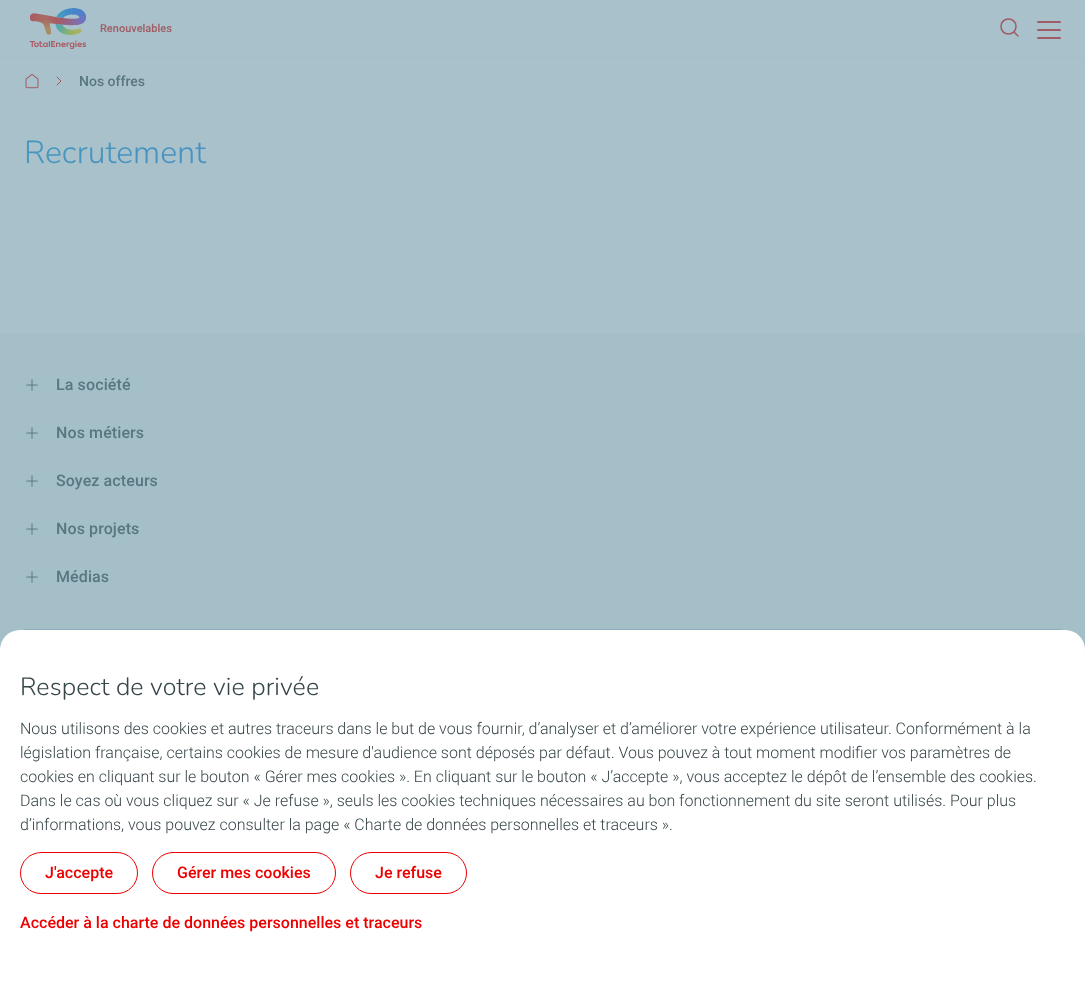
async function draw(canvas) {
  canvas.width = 1085;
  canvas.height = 999;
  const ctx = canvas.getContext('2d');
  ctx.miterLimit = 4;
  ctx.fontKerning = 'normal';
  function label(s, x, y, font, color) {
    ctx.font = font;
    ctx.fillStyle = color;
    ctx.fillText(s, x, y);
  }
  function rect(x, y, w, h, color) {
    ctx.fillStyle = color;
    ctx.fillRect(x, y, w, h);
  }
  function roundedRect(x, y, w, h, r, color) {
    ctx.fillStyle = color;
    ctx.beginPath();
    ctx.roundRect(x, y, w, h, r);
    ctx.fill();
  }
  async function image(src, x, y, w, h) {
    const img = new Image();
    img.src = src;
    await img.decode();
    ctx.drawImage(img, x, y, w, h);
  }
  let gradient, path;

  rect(0, 0, 1085, 999, '#a9c1ca');
  rect(0, 57, 1085, 1, '#a5bfc9');
  await image('assets/img1.png', 29, 8, 58, 41);
  label('Renouvelables', 100, 32, '500 11px Roboto', '#a05b64');
  path = new Path2D('M1018 36L1014 32M1016 26.5C1016 36.5 1001 36.5 1001 26.5C1001 16.5 1016 16.5 1016 26.5Z');
  ctx.strokeStyle = '#a05b64';
  ctx.lineWidth = 1.5;
  ctx.lineCap = 'round';
  ctx.lineJoin = 'round';
  ctx.stroke(path);
  roundedRect(1037, 21, 24, 2, 1, '#a05b64');
  roundedRect(1037, 29, 24, 2, 1, '#a05b64');
  roundedRect(1037, 37, 24, 2, 1, '#a05b64');
  await image('assets/img2.png', 25, 73, 14, 16);
  path = new Path2D('M57 85L61 81L57 77');
  ctx.lineWidth = 1;
  ctx.stroke(path);
  label('Nos offres', 79, 86, '500 14px Roboto', '#597781');
  ctx.letterSpacing = '0.1px';
  ctx.font = '300 32px Nunito';
  gradient = ctx.createLinearGradient(273, -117, 812, 422);
  gradient.addColorStop(0, '#4398bf');
  gradient.addColorStop(1, '#5f6fca');
  ctx.fillStyle = gradient;
  ctx.fillText('Recrutement', 24, 163);
  rect(0, 333, 1085, 317, '#a5bfc9');
  rect(24, 629, 1037, 1, '#8cacb9');
  await image('assets/img3.png', 26, 379, 12, 12);
  label('La société', 56, 390, '500 16px Roboto', '#597781');
  await image('assets/img3.png', 26, 427, 12, 12);
  label('Nos métiers', 56, 438, '500 16px Roboto', '#597781');
  await image('assets/img3.png', 26, 475, 12, 12);
  label('Soyez acteurs', 56, 486, '500 16px Roboto', '#597781');
  await image('assets/img3.png', 26, 523, 12, 12);
  label('Nos projets', 56, 534, '500 16px Roboto', '#597781');
  await image('assets/img3.png', 26, 571, 12, 12);
  label('Médias', 56, 582, '500 16px Roboto', '#597781');
  ctx.fillStyle = '#fff';
  ctx.beginPath();
  ctx.roundRect(0, 630, 1085, 369, [20, 20, 0, 0]);
  ctx.fill();
  label('Respect de votre vie privée', 20, 695, '300 25px Nunito', '#374649');
  ctx.letterSpacing = '0px';
  label('Nous utilisons des cookies et autres traceurs dans le but de vous fournir, d’analyser et d’améliorer votre expérience utilisateur. Conformément à la', 20, 734, '300 16px Roboto', '#374649');
  label('législation française, certains cookies de mesure d\'audience sont déposés par défaut. Vous pouvez à tout moment modifier vos paramètres de', 20, 758, '300 16px Roboto', '#374649');
  label('cookies en cliquant sur le bouton « Gérer mes cookies ». En cliquant sur le bouton « J’accepte », vous acceptez le dépôt de l’ensemble des cookies.', 20, 782, '300 16px Roboto', '#374649');
  label('Dans le cas où vous cliquez sur « Je refuse », seuls les cookies techniques nécessaires au bon fonctionnement du site seront utilisés. Pour plus', 20, 806, '300 16px Roboto', '#374649');
  label('d’informations, vous pouvez consulter la page « Charte de données personnelles et traceurs ».', 20, 830, '300 16px Roboto', '#374649');
  ctx.beginPath();
  ctx.roundRect(20.5, 852.5, 117, 41, 20.5);
  ctx.strokeStyle = '#ed0000';
  ctx.lineJoin = 'miter';
  ctx.stroke();
  label('J\'accepte', 45, 878, '500 16px Roboto', '#ed0000');
  ctx.beginPath();
  ctx.roundRect(152.5, 852.5, 183, 41, 20.5);
  ctx.stroke();
  label('Gérer mes cookies', 177, 878, '500 16px Roboto', '#ed0000');
  ctx.beginPath();
  ctx.roundRect(350.5, 852.5, 116, 41, 20.5);
  ctx.stroke();
  label('Je refuse', 375, 878, '500 16px Roboto', '#ed0000');
  label('Accéder à la charte de données personnelles et traceurs', 20, 928, '500 16px Roboto', '#ed0000');
}

draw(document.querySelector('canvas'));
